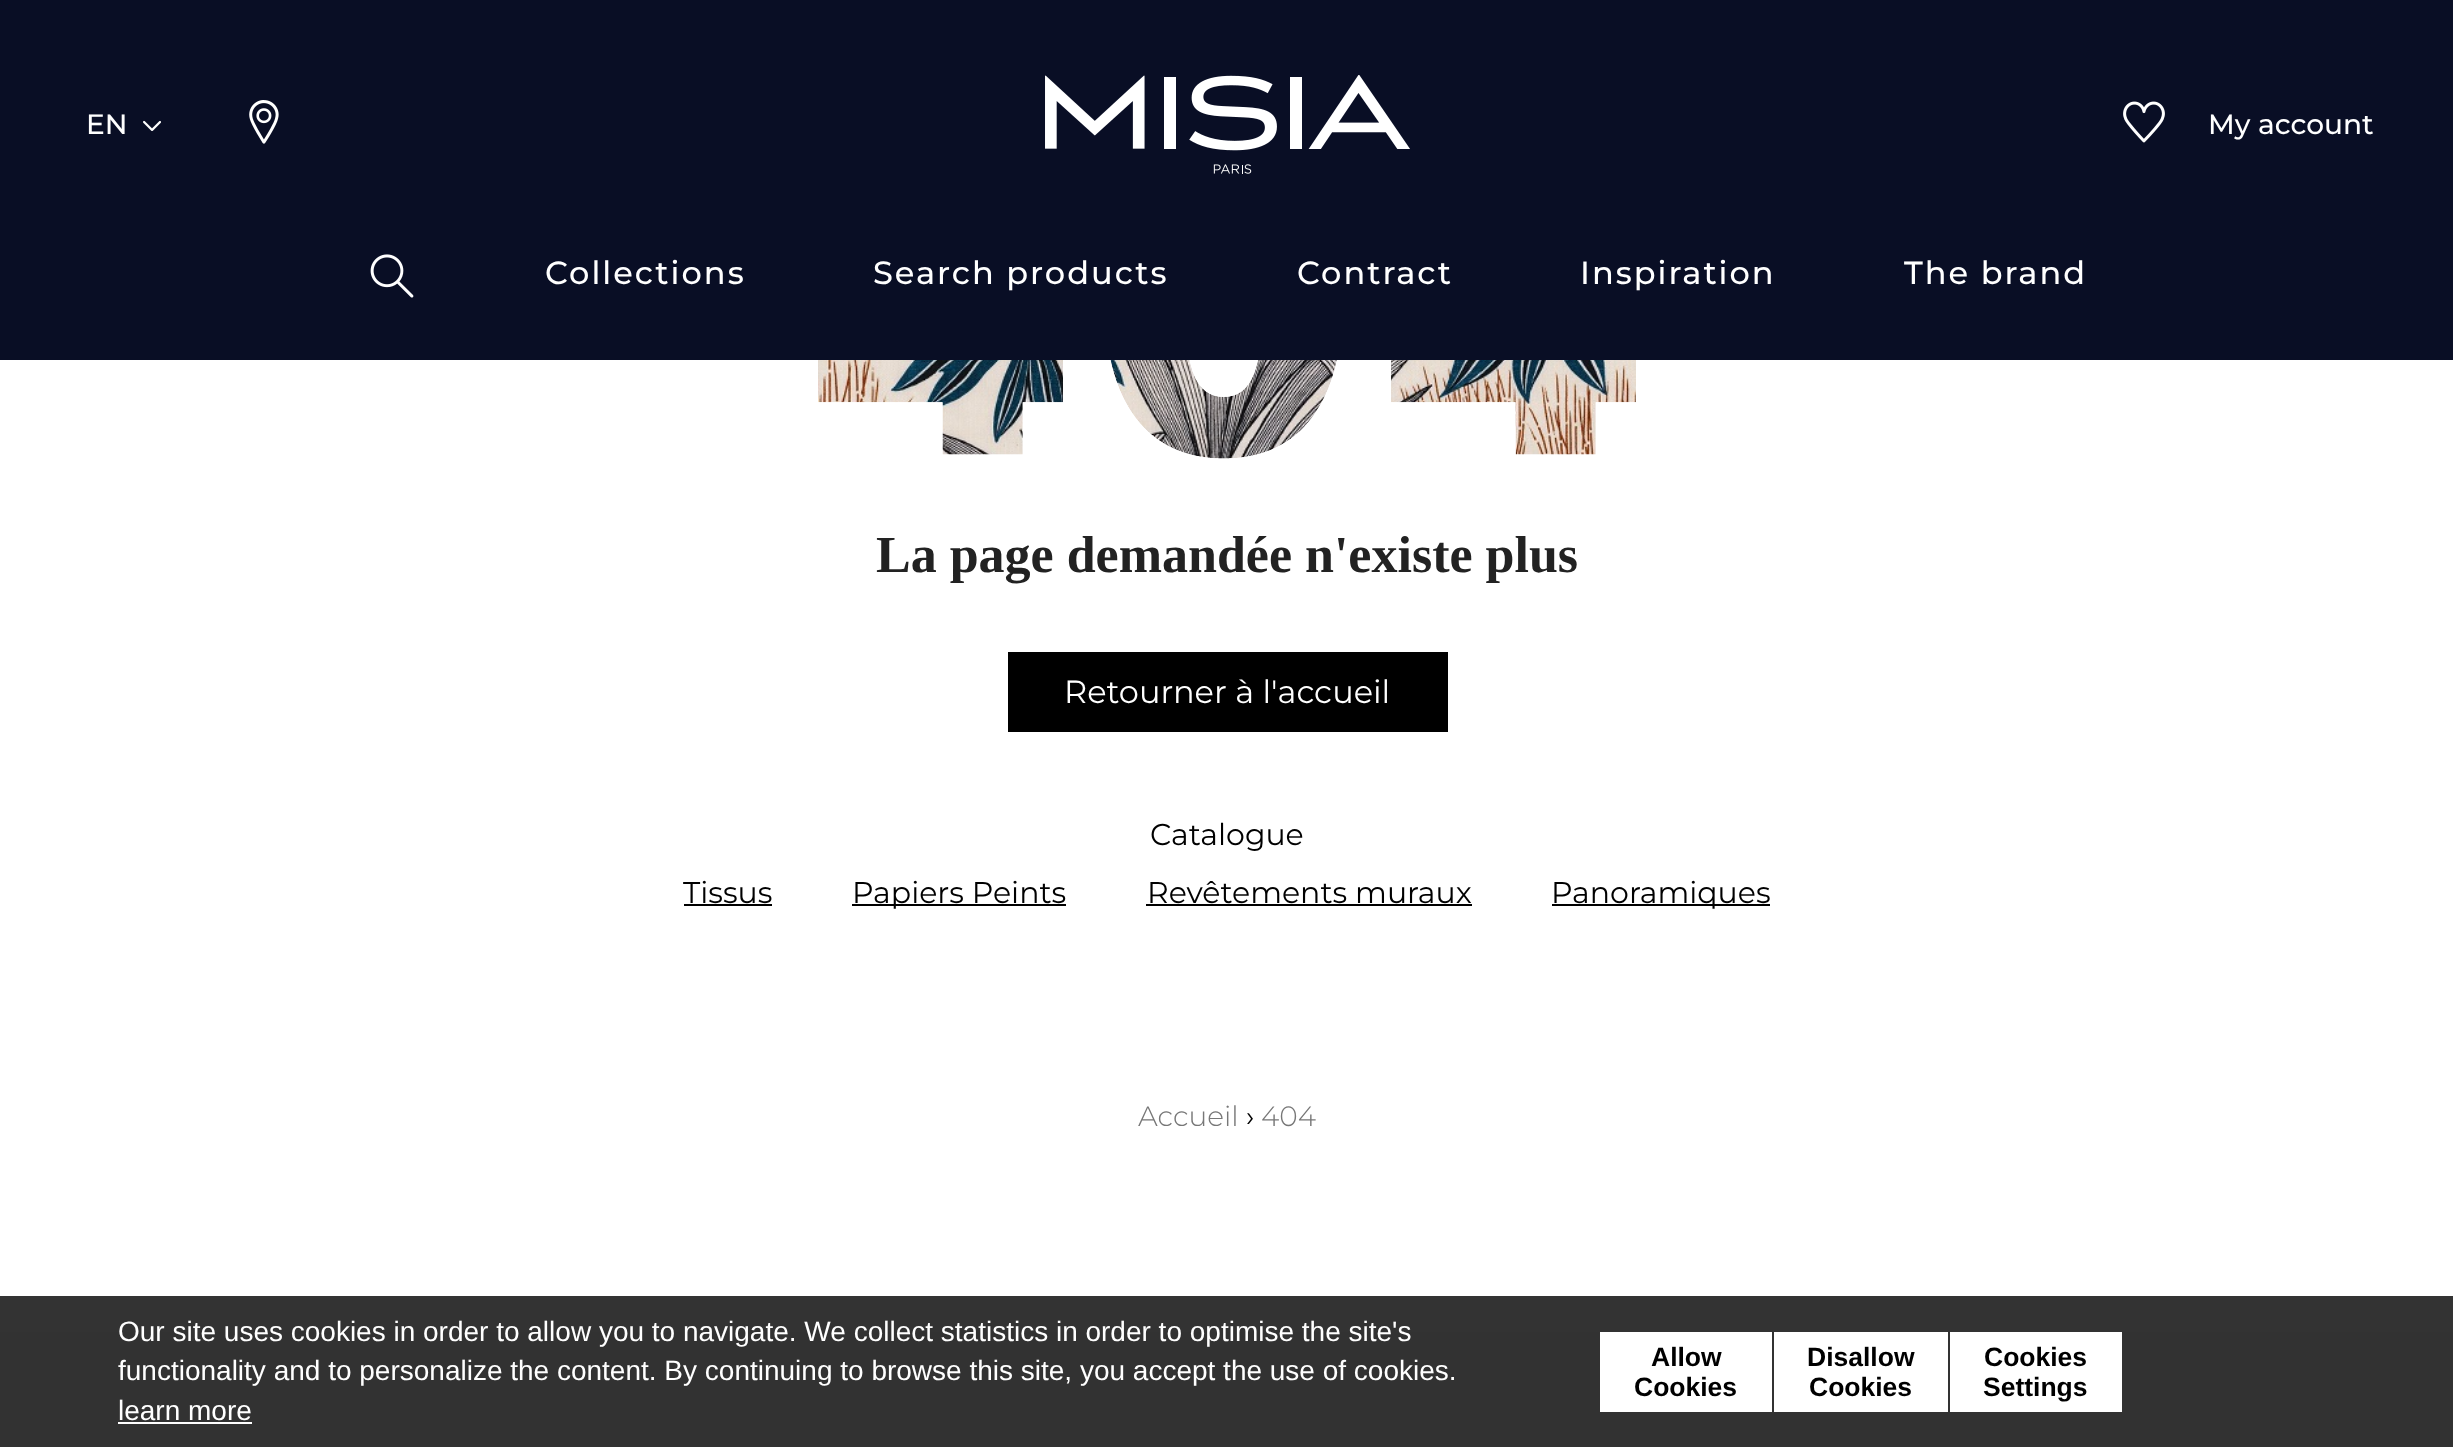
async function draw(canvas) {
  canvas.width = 2453;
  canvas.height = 1447;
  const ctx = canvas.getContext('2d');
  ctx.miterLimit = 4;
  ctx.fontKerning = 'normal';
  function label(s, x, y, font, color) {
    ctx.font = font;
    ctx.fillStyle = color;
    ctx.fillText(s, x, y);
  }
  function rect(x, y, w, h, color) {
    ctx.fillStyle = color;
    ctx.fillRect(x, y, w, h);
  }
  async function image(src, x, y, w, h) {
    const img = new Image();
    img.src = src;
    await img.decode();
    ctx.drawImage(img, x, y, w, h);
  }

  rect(0, 0, 2453, 1447, '#fff');
  rect(0, 1296, 2453, 36, '#333');
  rect(0, 0, 2453, 360, '#090e25');
  label('EN', 86, 134, '500 28px Montserrat', '#fff');
  await image('assets/img1.png', 143, 120, 18, 11);
  await image('assets/img2.png', 249, 100, 30, 44);
  await image('assets/img3.png', 1045, 75, 365, 99);
  await image('assets/img4.png', 2123, 101, 42, 42);
  label('My account', 2208, 134, '500 28px Montserrat', '#fff');
  await image('assets/img5.png', 370, 254, 44, 44);
  ctx.letterSpacing = '2px';
  label('Collections', 545, 284, '500 32px Montserrat', '#fff');
  label('Search products', 873, 284, '500 32px Montserrat', '#fff');
  label('Contract', 1297, 284, '500 32px Montserrat', '#fff');
  label('Inspiration', 1580, 284, '500 32px Montserrat', '#fff');
  label('The brand', 1904, 284, '500 32px Montserrat', '#fff');
  await image('assets/img6.png', 818, 360, 818, 99);
  await image('assets/img7.png', 818, 360, 818, 99);
  ctx.letterSpacing = '0px';
  label('La page demandée n\'existe plus', 876, 572, 'bold 52px Liberation Serif', '#222');
  rect(1008, 652, 440, 80, '#000');
  label('Retourner à l\'accueil', 1064, 703, '32px Montserrat', '#fff');
  label('Catalogue', 1150, 845, '30px Montserrat', '#000');
  label('Tissus', 683, 903, '30px Montserrat', '#000');
  rect(684, 904, 88, 2, '#000');
  rect(852, 904, 214, 2, '#000');
  label('Papiers Peints', 852, 903, '30px Montserrat', '#000');
  label('Revêtements muraux', 1147, 903, '30px Montserrat', '#000');
  rect(1146, 904, 326, 2, '#000');
  rect(1552, 904, 218, 2, '#000');
  label('Panoramiques', 1551, 903, '30px Montserrat', '#000');
  label('Accueil', 1138, 1126, '300 28px Montserrat', '#777');
  label('›', 1246, 1126, '28px Montserrat', '#000');
  label('404', 1261, 1126, '300 28px Montserrat', '#777');
  rect(0, 1332, 2453, 115, '#323232');
  label('Our site uses cookies in order to allow you to navigate. We collect statistics in order to optimise the site\'s', 118, 1341, '28px Liberation Sans', '#fff');
  label('functionality and to personalize the content. By continuing to browse this site, you accept the use of cookies.', 118, 1380, '28px Liberation Sans', '#fff');
  label('learn more', 118, 1420, '28px Liberation Sans', '#fff');
  rect(118, 1422, 134, 2, '#fff');
  rect(1600, 1332, 172, 80, '#fff');
  label('Allow', 1651, 1366, 'bold 26.5px Liberation Sans', '#000');
  label('Cookies', 1634, 1396, 'bold 26.5px Liberation Sans', '#000');
  rect(1774, 1332, 174, 80, '#fff');
  label('Disallow', 1807, 1366, 'bold 26.5px Liberation Sans', '#000');
  label('Cookies', 1809, 1396, 'bold 26.5px Liberation Sans', '#000');
  rect(1950, 1332, 172, 80, '#fff');
  label('Cookies', 1984, 1366, 'bold 26.5px Liberation Sans', '#000');
  label('Settings', 1983, 1396, 'bold 26.5px Liberation Sans', '#000');
}

draw(document.querySelector('canvas'));
